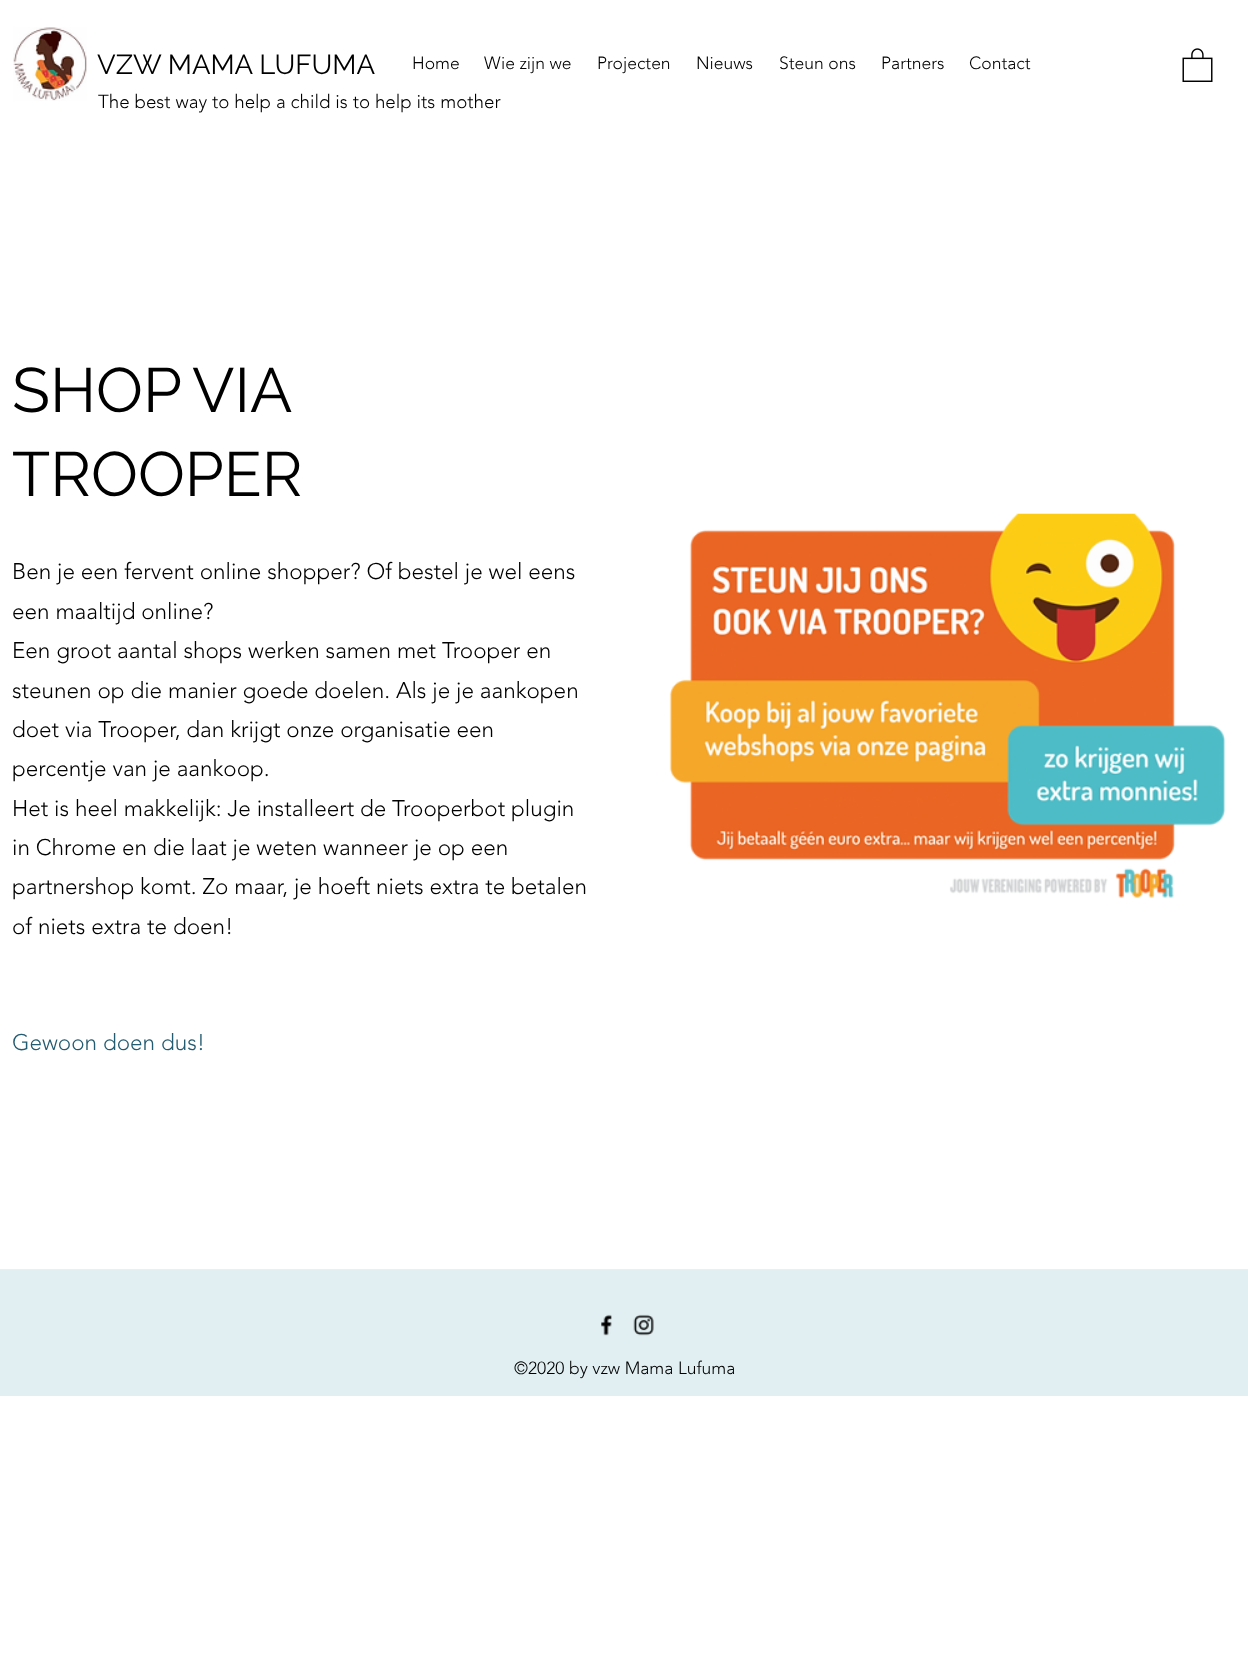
async function draw(canvas) {
  canvas.width = 1248;
  canvas.height = 1669;
  const ctx = canvas.getContext('2d');
  ctx.miterLimit = 4;
  ctx.fontKerning = 'normal';
  function label(s, x, y, font, color) {
    ctx.font = font;
    ctx.fillStyle = color;
    ctx.fillText(s, x, y);
  }
  function rect(x, y, w, h, color) {
    ctx.fillStyle = color;
    ctx.fillRect(x, y, w, h);
  }
  async function image(src, x, y, w, h) {
    const img = new Image();
    img.src = src;
    await img.decode();
    ctx.drawImage(img, x, y, w, h);
  }

  rect(0, 0, 1248, 1669, '#fff');
  await image('assets/img1.png', 13, 27, 74, 74);
  label('VZW MAMA LUFUMA', 97, 74, '27.5px Raleway', '#000');
  label('The best way to help a child is to help its mother', 98, 108, '300 18.75px "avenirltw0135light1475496"', '#000');
  label('Home', 412, 69, '300 17.5px "avenirltw0135light1475496"', '#000');
  label('Wie zijn we', 484, 69, '300 17.5px "avenirltw0135light1475496"', '#000');
  label('Projecten', 597, 69, '300 17.5px "avenirltw0135light1475496"', '#000');
  label('Nieuws', 696, 69, '300 17.5px "avenirltw0135light1475496"', '#000');
  label('Steun ons', 779, 69, '300 17.5px "avenirltw0135light1475496"', '#000');
  label('Partners', 881, 69, '300 17.5px "avenirltw0135light1475496"', '#000');
  label('Contact', 969, 69, '300 17.5px "avenirltw0135light1475496"', '#000');
  await image('assets/img2.png', 1182, 48, 31, 34);
  ctx.wordSpacing = '-2px';
  label('SHOP VIA', 12, 412, '62.5px Raleway', '#000');
  ctx.wordSpacing = '0px';
  label('TROOPER', 12, 496, '62.5px Raleway', '#000');
  label('Ben je een fervent online shopper? Of bestel je wel eens', 12, 579, '300 22.5px "avenirltw0135light1475496"', '#000');
  label('een maaltijd online?', 12, 619, '300 22.5px "avenirltw0135light1475496"', '#000');
  label('Een groot aantal shops werken samen met Trooper en', 12, 658, '300 22.5px "avenirltw0135light1475496"', '#000');
  label('steunen op die manier goede doelen. Als je je aankopen', 12, 698, '300 22.5px "avenirltw0135light1475496"', '#000');
  label('doet via Trooper, dan krijgt onze organisatie een', 12, 737, '300 22.5px "avenirltw0135light1475496"', '#000');
  label('percentje van je aankoop.', 12, 776, '300 22.5px "avenirltw0135light1475496"', '#000');
  label('Het is heel makkelijk: Je installeert de Trooperbot plugin', 12, 816, '300 22.5px "avenirltw0135light1475496"', '#000');
  label('in Chrome en die laat je weten wanneer je op een', 12, 855, '300 22.5px "avenirltw0135light1475496"', '#000');
  label('partnershop komt. Zo maar, je hoeft niets extra te betalen', 12, 894, '300 22.5px "avenirltw0135light1475496"', '#000');
  label('of niets extra te doen!', 12, 934, '300 22.5px "avenirltw0135light1475496"', '#000');
  label('Gewoon doen dus!', 12, 1050, '300 22.5px "avenirltw0135light1475496"', '#235b71');
  await image('assets/img3.png', 669, 513, 557, 385);
  rect(0, 1270, 1248, 126, '#e1eff2');
  rect(0, 1269, 1248, 1, '#e6f1f4');
  await image('assets/img4.png', 601, 1314, 11, 22);
  await image('assets/img5.png', 633, 1314, 21, 22);
  label('©2020 by vzw Mama Lufuma', 514, 1374, '300 17.5px "avenirltw0135light1475496"', '#000');
}

draw(document.querySelector('canvas'));
